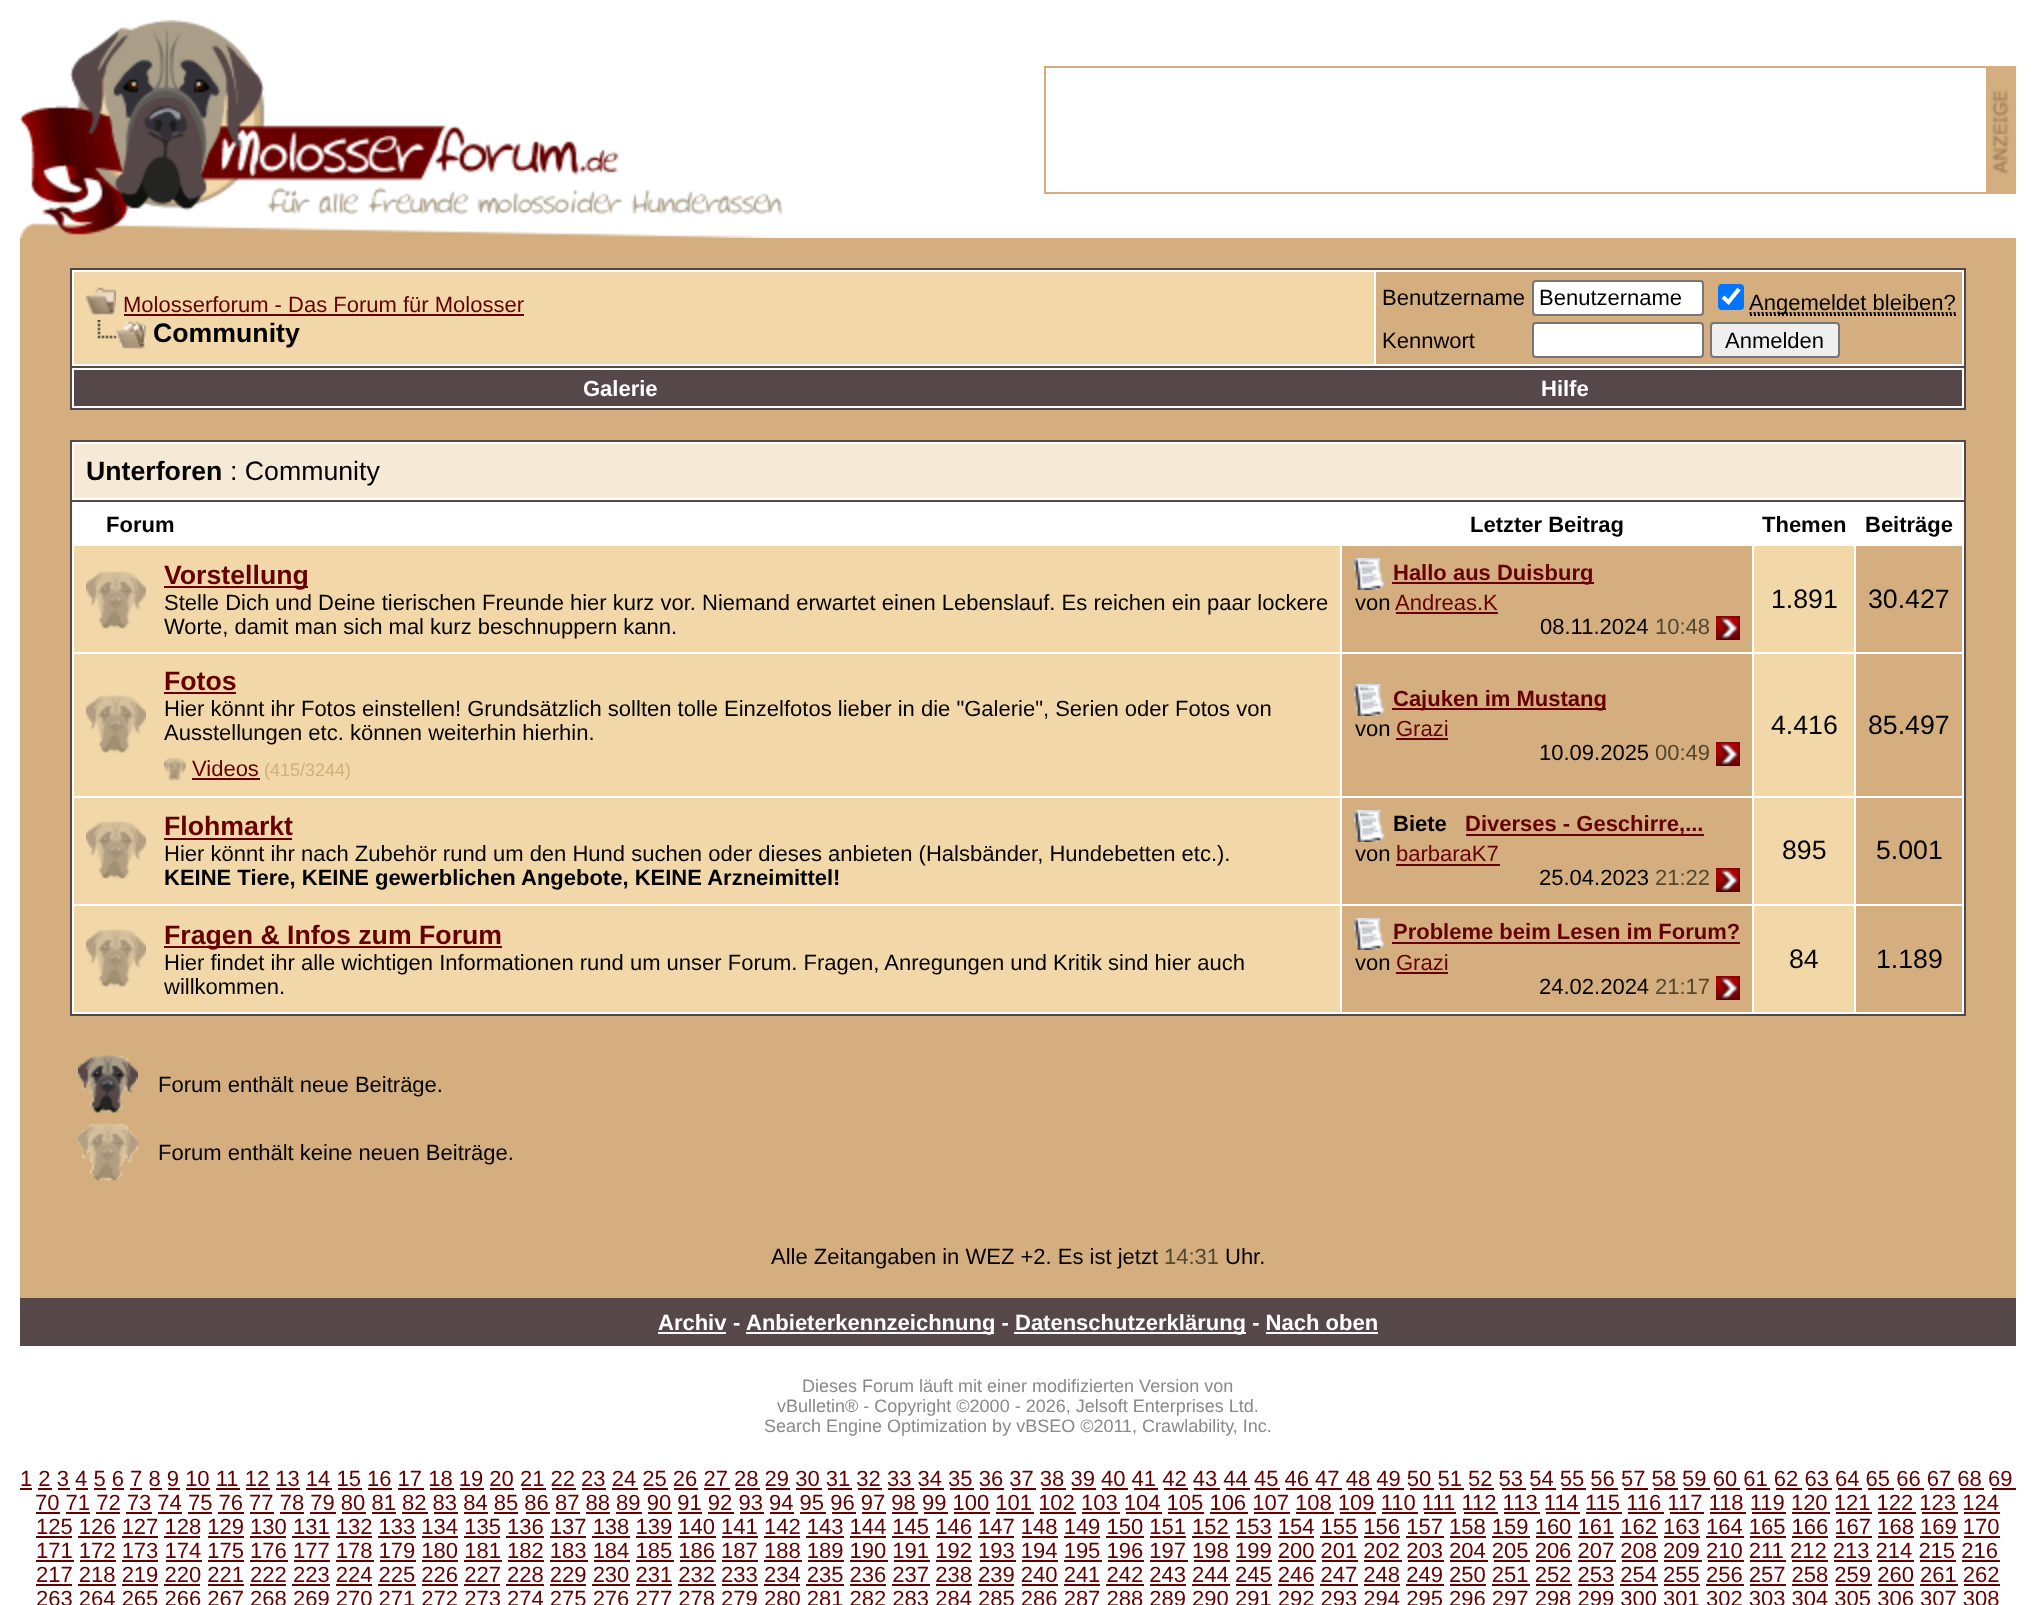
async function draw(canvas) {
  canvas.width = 2035;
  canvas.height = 1605;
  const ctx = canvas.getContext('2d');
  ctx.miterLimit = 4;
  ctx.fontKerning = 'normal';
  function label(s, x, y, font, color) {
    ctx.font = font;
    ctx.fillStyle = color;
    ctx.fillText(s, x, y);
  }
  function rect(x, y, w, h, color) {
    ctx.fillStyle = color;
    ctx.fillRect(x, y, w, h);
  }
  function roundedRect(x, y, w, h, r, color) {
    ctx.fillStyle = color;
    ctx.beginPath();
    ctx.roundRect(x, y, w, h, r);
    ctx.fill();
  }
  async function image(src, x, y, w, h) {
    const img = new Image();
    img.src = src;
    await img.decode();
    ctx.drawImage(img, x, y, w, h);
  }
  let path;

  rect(0, 0, 2035, 1605, '#fff');
  await image('assets/img1.png', 20, 20, 762, 218);
  await image('assets/img2.png', 1986, 68, 28, 124);
  ctx.strokeStyle = '#d4ae7e';
  ctx.lineWidth = 2;
  ctx.strokeRect(1045, 67, 970, 126);
  rect(20, 238, 1996, 1060, '#d4ae7e');
  ctx.fillStyle = '#fff';
  ctx.beginPath();
  ctx.rect(71, 269, 1894, 98);
  ctx.fill();
  ctx.strokeStyle = '#564848';
  ctx.stroke();
  rect(74, 272, 1300, 92, '#f2d7a8');
  await image('assets/img3.png', 86, 287, 30, 28);
  label('Molosserforum - Das Forum für Molosser', 123, 312, '22px Liberation Sans', '#600');
  rect(124, 314, 400, 2, '#600');
  await image('assets/img4.png', 97, 320, 49, 29);
  label('Community', 153, 342, 'bold 26.7px Liberation Sans', '#000');
  rect(1376, 272, 586, 92, '#d4ae7e');
  label('Benutzername', 1382, 305, '22px Liberation Sans', '#000');
  ctx.fillStyle = '#fff';
  ctx.beginPath();
  ctx.roundRect(1533, 281, 170, 34, 3);
  ctx.fill();
  ctx.strokeStyle = '#767676';
  ctx.stroke();
  label('Benutzername', 1539, 305, '22px Liberation Sans', '#000');
  roundedRect(1718, 284, 26, 26, 4, '#0075ff');
  path = new Path2D('M1723 297L1728.5 302L1739 289');
  ctx.strokeStyle = '#fff';
  ctx.lineWidth = 4.2;
  ctx.stroke(path);
  path = new Path2D('M1750 315H1956');
  ctx.strokeStyle = '#000';
  ctx.lineWidth = 2;
  ctx.setLineDash([2, 2]);
  ctx.stroke(path);
  path = new Path2D('M1749.5 313H1956');
  ctx.stroke(path);
  label('Angemeldet bleiben?', 1749, 310, '22px Liberation Sans', '#000');
  label('Kennwort', 1382, 348, '22px Liberation Sans', '#000');
  ctx.fillStyle = '#fff';
  ctx.beginPath();
  ctx.roundRect(1533, 323, 170, 34, 3);
  ctx.fill();
  ctx.strokeStyle = '#767676';
  ctx.setLineDash([]);
  ctx.stroke();
  ctx.fillStyle = '#efefef';
  ctx.beginPath();
  ctx.roundRect(1711, 323, 128, 34, 3);
  ctx.fill();
  ctx.stroke();
  label('Anmelden', 1725, 348, '22px Liberation Sans', '#000');
  rect(72, 368, 1892, 40, '#fff');
  rect(1964, 368, 2, 42, '#564848');
  rect(70, 408, 1896, 2, '#564848');
  rect(70, 368, 2, 42, '#564848');
  rect(74, 370, 1888, 36, '#564848');
  label('Galerie', 583, 396, 'bold 22px Liberation Sans', '#fff');
  label('Hilfe', 1541, 396, 'bold 22px Liberation Sans', '#fff');
  rect(72, 442, 1892, 58, '#fff');
  rect(70, 440, 1896, 2, '#564848');
  rect(1964, 440, 2, 60, '#564848');
  rect(70, 440, 2, 60, '#564848');
  rect(74, 444, 1888, 54, '#f6ead6');
  label('Unterforen', 86, 480, 'bold 26.7px Liberation Sans', '#000');
  label(': Community', 230, 480, '26.7px Liberation Sans', '#000');
  ctx.fillStyle = '#fff';
  ctx.beginPath();
  ctx.rect(71, 501, 1894, 514);
  ctx.fill();
  ctx.strokeStyle = '#564848';
  ctx.stroke();
  label('Forum', 106, 532, 'bold 22px Liberation Sans', '#000');
  label('Letzter Beitrag', 1470, 532, 'bold 22px Liberation Sans', '#000');
  label('Themen', 1762, 532, 'bold 22px Liberation Sans', '#000');
  label('Beiträge', 1865, 532, 'bold 22px Liberation Sans', '#000');
  rect(74, 546, 1266, 106, '#f2d7a8');
  await image('assets/img5.png', 86, 571, 60, 58);
  rect(164, 586, 144, 2, '#600');
  label('Vorstellung', 164, 584, 'bold 26.7px Liberation Sans', '#600');
  label('Stelle Dich und Deine tierischen Freunde hier kurz vor. Niemand erwartet einen Lebenslauf. Es reichen ein paar lockere', 164, 610, '22px Liberation Sans', '#000');
  label('Worte, damit man sich mal kurz beschnuppern kann.', 164, 634, '22px Liberation Sans', '#000');
  rect(1342, 546, 410, 106, '#d4ae7e');
  await image('assets/img6.png', 1354, 558, 31, 32);
  rect(1392, 582, 202, 2, '#600');
  label('Hallo aus Duisburg', 1393, 580, 'bold 22px Liberation Sans', '#600');
  label('von', 1355, 610, '22px Liberation Sans', '#000');
  label('Andreas.K', 1395, 610, '22px Liberation Sans', '#600');
  rect(1396, 612, 102, 2, '#600');
  label('08.11.2024', 1540, 634, '22px Liberation Sans', '#000');
  label('10:48', 1655, 634, '22px Liberation Sans', '#54472f');
  await image('assets/img7.png', 1716, 616, 24, 24);
  rect(1754, 546, 100, 106, '#f2d7a8');
  label('1.891', 1771, 608, '26.7px Liberation Sans', '#000');
  rect(1856, 546, 106, 106, '#d4ae7e');
  label('30.427', 1868, 608, '26.7px Liberation Sans', '#000');
  rect(74, 654, 1266, 142, '#f2d7a8');
  await image('assets/img5.png', 86, 695, 60, 58);
  label('Fotos', 164, 690, 'bold 26.7px Liberation Sans', '#600');
  rect(164, 692, 72, 2, '#600');
  label('Hier könnt ihr Fotos einstellen! Grundsätzlich sollten tolle Einzelfotos lieber in die "Galerie", Serien oder Fotos von', 164, 716, '22px Liberation Sans', '#000');
  label('Ausstellungen etc. können weiterhin hierhin.', 164, 740, '22px Liberation Sans', '#000');
  await image('assets/img8.png', 164, 758, 22, 23);
  label('Videos', 192, 776, '22px Liberation Sans', '#600');
  rect(192, 778, 68, 2, '#600');
  label('(415/3244)', 264, 776, '18px Liberation Sans', '#d4ae7e');
  rect(1342, 654, 410, 142, '#d4ae7e');
  await image('assets/img6.png', 1354, 684, 31, 32);
  rect(1392, 708, 214, 2, '#600');
  label('Cajuken im Mustang', 1393, 706, 'bold 22px Liberation Sans', '#600');
  label('von', 1355, 736, '22px Liberation Sans', '#000');
  label('Grazi', 1396, 736, '22px Liberation Sans', '#600');
  rect(1396, 738, 52, 2, '#600');
  label('10.09.2025', 1539, 760, '22px Liberation Sans', '#000');
  label('00:49', 1655, 760, '22px Liberation Sans', '#54472f');
  await image('assets/img7.png', 1716, 742, 24, 24);
  rect(1754, 654, 100, 142, '#f2d7a8');
  label('4.416', 1771, 734, '26.7px Liberation Sans', '#000');
  rect(1856, 654, 106, 142, '#d4ae7e');
  label('85.497', 1868, 734, '26.7px Liberation Sans', '#000');
  rect(74, 798, 1266, 106, '#f2d7a8');
  await image('assets/img5.png', 86, 821, 60, 58);
  label('Flohmarkt', 164, 835, 'bold 26.7px Liberation Sans', '#600');
  rect(164, 838, 128, 2, '#600');
  label('Hier könnt ihr nach Zubehör rund um den Hund suchen oder dieses anbieten (Halsbänder, Hundebetten etc.).', 164, 861, '22px Liberation Sans', '#000');
  label('KEINE Tiere, KEINE gewerblichen Angebote, KEINE Arzneimittel!', 164, 885, 'bold 22px Liberation Sans', '#000');
  rect(1342, 798, 410, 106, '#d4ae7e');
  await image('assets/img6.png', 1354, 810, 31, 32);
  label('Biete', 1393, 831, 'bold 22px Liberation Sans', '#000');
  rect(1466, 834, 238, 2, '#600');
  label('Diverses - Geschirre,...', 1465, 831, 'bold 22px Liberation Sans', '#600');
  label('von', 1355, 861, '22px Liberation Sans', '#000');
  label('barbaraK7', 1396, 861, '22px Liberation Sans', '#600');
  rect(1396, 864, 104, 2, '#600');
  label('25.04.2023', 1539, 885, '22px Liberation Sans', '#000');
  label('21:22', 1655, 885, '22px Liberation Sans', '#54472f');
  await image('assets/img7.png', 1716, 868, 24, 24);
  rect(1754, 798, 100, 106, '#f2d7a8');
  label('895', 1782, 859, '26.7px Liberation Sans', '#000');
  rect(1856, 798, 106, 106, '#d4ae7e');
  label('5.001', 1876, 859, '26.7px Liberation Sans', '#000');
  rect(74, 906, 1266, 106, '#f2d7a8');
  await image('assets/img5.png', 86, 929, 60, 58);
  rect(164, 946, 338, 2, '#600');
  label('Fragen & Infos zum Forum', 164, 944, 'bold 26.7px Liberation Sans', '#600');
  label('Hier findet ihr alle wichtigen Informationen rund um unser Forum. Fragen, Anregungen und Kritik sind hier auch', 164, 970, '22px Liberation Sans', '#000');
  label('willkommen.', 164, 994, '22px Liberation Sans', '#000');
  rect(1342, 906, 410, 106, '#d4ae7e');
  await image('assets/img6.png', 1354, 918, 31, 32);
  label('Probleme beim Lesen im Forum?', 1393, 939, 'bold 22px Liberation Sans', '#600');
  rect(1392, 942, 348, 2, '#600');
  label('von', 1355, 970, '22px Liberation Sans', '#000');
  label('Grazi', 1396, 970, '22px Liberation Sans', '#600');
  rect(1396, 972, 52, 2, '#600');
  label('24.02.2024', 1539, 994, '22px Liberation Sans', '#000');
  label('21:17', 1655, 994, '22px Liberation Sans', '#54472f');
  await image('assets/img7.png', 1716, 976, 24, 24);
  rect(1754, 906, 100, 106, '#f2d7a8');
  label('84', 1789, 968, '26.7px Liberation Sans', '#000');
  rect(1856, 906, 106, 106, '#d4ae7e');
  label('1.189', 1876, 968, '26.7px Liberation Sans', '#000');
  await image('assets/img9.png', 78, 1055, 60, 58);
  label('Forum enthält neue Beiträge.', 158, 1092, '22px Liberation Sans', '#000');
  await image('assets/img10.png', 78, 1123, 60, 58);
  label('Forum enthält keine neuen Beiträge.', 158, 1160, '22px Liberation Sans', '#000');
  label('Alle Zeitangaben in WEZ +2. Es ist jetzt', 771, 1264, '22px Liberation Sans', '#000');
  label('14:31', 1164, 1264, '22px Liberation Sans', '#54472f');
  label('Uhr.', 1225, 1264, '22px Liberation Sans', '#000');
  rect(20, 1298, 1996, 48, '#564848');
  label('Archiv', 658, 1330, 'bold 22px Liberation Sans', '#fff');
  rect(658, 1332, 68, 2, '#fff');
  label('-', 733, 1330, 'bold 22px Liberation Sans', '#fff');
  rect(746, 1332, 248, 2, '#fff');
  label('Anbieterkennzeichnung -', 746, 1330, 'bold 22px Liberation Sans', '#fff');
  rect(1014, 1332, 232, 2, '#fff');
  label('Datenschutzerklärung - Nach oben', 1015, 1330, 'bold 22px Liberation Sans', '#fff');
  rect(1266, 1332, 112, 2, '#fff');
  label('Dieses Forum läuft mit einer modifizierten Version von', 802, 1392, '18px Liberation Sans', '#898989');
  label('vBulletin® - Copyright ©2000 - 2026, Jelsoft Enterprises Ltd.', 777, 1412, '18px Liberation Sans', '#898989');
  label('Search Engine Optimization by vBSEO ©2011, Crawlability, Inc.', 764, 1432, '18px Liberation Sans', '#898989');
  label('1 2 3 4 5 6 7 8 9 10 11 12 13 14 15 16 17 18 19 20 21 22 23 24 25 26 27 28 29 30 31 32 33 34 35 36 37 38 39 40 41 42 43 44 45 46 47 48 49 50 51 52 53 54 55 56 57 58 59 60 61 62 63 64 65 66 67 68 69', 20, 1486, '22px Liberation Sans', '#600');
  rect(20, 1488, 12, 2, '#600');
  rect(38, 1488, 14, 2, '#600');
  rect(58, 1488, 12, 2, '#600');
  rect(76, 1488, 12, 2, '#600');
  rect(94, 1488, 12, 2, '#600');
  rect(112, 1488, 12, 2, '#600');
  rect(130, 1488, 12, 2, '#600');
  rect(150, 1488, 12, 2, '#600');
  rect(168, 1488, 12, 2, '#600');
  rect(186, 1488, 24, 2, '#600');
  rect(216, 1488, 24, 2, '#600');
  rect(246, 1488, 24, 2, '#600');
  rect(276, 1488, 24, 2, '#600');
  rect(306, 1488, 26, 2, '#600');
  rect(338, 1488, 24, 2, '#600');
  rect(368, 1488, 24, 2, '#600');
  rect(398, 1488, 26, 2, '#600');
  rect(430, 1488, 24, 2, '#600');
  rect(460, 1488, 24, 2, '#600');
  rect(490, 1488, 24, 2, '#600');
  rect(522, 1488, 24, 2, '#600');
  rect(552, 1488, 24, 2, '#600');
  rect(582, 1488, 24, 2, '#600');
  rect(612, 1488, 26, 2, '#600');
  rect(644, 1488, 24, 2, '#600');
  rect(674, 1488, 24, 2, '#600');
  rect(704, 1488, 26, 2, '#600');
  rect(736, 1488, 24, 2, '#600');
  rect(766, 1488, 24, 2, '#600');
  rect(796, 1488, 26, 2, '#600');
  rect(828, 1488, 24, 2, '#600');
  rect(858, 1488, 24, 2, '#600');
  rect(888, 1488, 26, 2, '#600');
  rect(920, 1488, 24, 2, '#600');
  rect(950, 1488, 24, 2, '#600');
  rect(980, 1488, 24, 2, '#600');
  rect(1012, 1488, 24, 2, '#600');
  rect(1042, 1488, 24, 2, '#600');
  rect(1072, 1488, 24, 2, '#600');
  rect(1102, 1488, 26, 2, '#600');
  rect(1134, 1488, 24, 2, '#600');
  rect(1164, 1488, 24, 2, '#600');
  rect(1194, 1488, 26, 2, '#600');
  rect(1226, 1488, 24, 2, '#600');
  rect(1256, 1488, 24, 2, '#600');
  rect(1286, 1488, 26, 2, '#600');
  rect(1318, 1488, 24, 2, '#600');
  rect(1348, 1488, 24, 2, '#600');
  rect(1378, 1488, 26, 2, '#600');
  rect(1410, 1488, 24, 2, '#600');
  rect(1440, 1488, 24, 2, '#600');
  rect(1470, 1488, 24, 2, '#600');
  rect(1502, 1488, 24, 2, '#600');
  rect(1532, 1488, 24, 2, '#600');
  rect(1562, 1488, 24, 2, '#600');
  rect(1592, 1488, 26, 2, '#600');
  rect(1624, 1488, 24, 2, '#600');
  rect(1654, 1488, 24, 2, '#600');
  rect(1684, 1488, 26, 2, '#600');
  rect(1716, 1488, 24, 2, '#600');
  rect(1746, 1488, 24, 2, '#600');
  rect(1776, 1488, 26, 2, '#600');
  rect(1808, 1488, 24, 2, '#600');
  rect(1838, 1488, 24, 2, '#600');
  rect(1868, 1488, 26, 2, '#600');
  rect(1900, 1488, 24, 2, '#600');
  rect(1930, 1488, 24, 2, '#600');
  rect(1960, 1488, 24, 2, '#600');
  rect(1992, 1488, 24, 2, '#600');
  label('70 71 72 73 74 75 76 77 78 79 80 81 82 83 84 85 86 87 88 89 90 91 92 93 94 95 96 97 98 99 100 101 102 103 104 105 106 107 108 109 110 111 112 113 114 115 116 117 118 119 120 121 122 123 124', 35, 1510, '22px Liberation Sans', '#600');
  rect(36, 1512, 24, 2, '#600');
  rect(66, 1512, 24, 2, '#600');
  rect(96, 1512, 24, 2, '#600');
  rect(126, 1512, 26, 2, '#600');
  rect(158, 1512, 24, 2, '#600');
  rect(188, 1512, 24, 2, '#600');
  rect(218, 1512, 26, 2, '#600');
  rect(250, 1512, 24, 2, '#600');
  rect(280, 1512, 24, 2, '#600');
  rect(310, 1512, 26, 2, '#600');
  rect(342, 1512, 24, 2, '#600');
  rect(372, 1512, 24, 2, '#600');
  rect(402, 1512, 26, 2, '#600');
  rect(434, 1512, 24, 2, '#600');
  rect(464, 1512, 24, 2, '#600');
  rect(494, 1512, 24, 2, '#600');
  rect(526, 1512, 24, 2, '#600');
  rect(556, 1512, 24, 2, '#600');
  rect(586, 1512, 24, 2, '#600');
  rect(616, 1512, 26, 2, '#600');
  rect(648, 1512, 24, 2, '#600');
  rect(678, 1512, 24, 2, '#600');
  rect(708, 1512, 26, 2, '#600');
  rect(740, 1512, 24, 2, '#600');
  rect(770, 1512, 24, 2, '#600');
  rect(800, 1512, 26, 2, '#600');
  rect(832, 1512, 24, 2, '#600');
  rect(862, 1512, 24, 2, '#600');
  rect(892, 1512, 26, 2, '#600');
  rect(924, 1512, 24, 2, '#600');
  rect(954, 1512, 36, 2, '#600');
  rect(996, 1512, 38, 2, '#600');
  rect(1040, 1512, 36, 2, '#600');
  rect(1082, 1512, 38, 2, '#600');
  rect(1126, 1512, 36, 2, '#600');
  rect(1168, 1512, 36, 2, '#600');
  rect(1210, 1512, 38, 2, '#600');
  rect(1254, 1512, 36, 2, '#600');
  rect(1296, 1512, 38, 2, '#600');
  rect(1340, 1512, 36, 2, '#600');
  rect(1382, 1512, 36, 2, '#600');
  rect(1424, 1512, 32, 2, '#600');
  rect(1464, 1512, 34, 2, '#600');
  rect(1504, 1512, 36, 2, '#600');
  rect(1546, 1512, 34, 2, '#600');
  rect(1586, 1512, 36, 2, '#600');
  rect(1628, 1512, 36, 2, '#600');
  rect(1670, 1512, 34, 2, '#600');
  rect(1710, 1512, 36, 2, '#600');
  rect(1752, 1512, 34, 2, '#600');
  rect(1792, 1512, 38, 2, '#600');
  rect(1836, 1512, 36, 2, '#600');
  rect(1878, 1512, 38, 2, '#600');
  rect(1922, 1512, 36, 2, '#600');
  rect(1964, 1512, 36, 2, '#600');
  label('125 126 127 128 129 130 131 132 133 134 135 136 137 138 139 140 141 142 143 144 145 146 147 148 149 150 151 152 153 154 155 156 157 158 159 160 161 162 163 164 165 166 167 168 169 170', 36, 1534, '22px Liberation Sans', '#600');
  rect(36, 1536, 36, 2, '#600');
  rect(78, 1536, 38, 2, '#600');
  rect(122, 1536, 36, 2, '#600');
  rect(164, 1536, 36, 2, '#600');
  rect(208, 1536, 36, 2, '#600');
  rect(250, 1536, 36, 2, '#600');
  rect(292, 1536, 38, 2, '#600');
  rect(336, 1536, 36, 2, '#600');
  rect(378, 1536, 38, 2, '#600');
  rect(422, 1536, 36, 2, '#600');
  rect(464, 1536, 36, 2, '#600');
  rect(506, 1536, 38, 2, '#600');
  rect(550, 1536, 36, 2, '#600');
  rect(592, 1536, 38, 2, '#600');
  rect(636, 1536, 36, 2, '#600');
  rect(678, 1536, 38, 2, '#600');
  rect(722, 1536, 36, 2, '#600');
  rect(764, 1536, 36, 2, '#600');
  rect(806, 1536, 38, 2, '#600');
  rect(850, 1536, 36, 2, '#600');
  rect(892, 1536, 38, 2, '#600');
  rect(936, 1536, 36, 2, '#600');
  rect(978, 1536, 36, 2, '#600');
  rect(1022, 1536, 36, 2, '#600');
  rect(1064, 1536, 36, 2, '#600');
  rect(1106, 1536, 38, 2, '#600');
  rect(1150, 1536, 36, 2, '#600');
  rect(1192, 1536, 38, 2, '#600');
  rect(1236, 1536, 36, 2, '#600');
  rect(1278, 1536, 36, 2, '#600');
  rect(1320, 1536, 38, 2, '#600');
  rect(1364, 1536, 36, 2, '#600');
  rect(1406, 1536, 38, 2, '#600');
  rect(1450, 1536, 36, 2, '#600');
  rect(1492, 1536, 38, 2, '#600');
  rect(1536, 1536, 36, 2, '#600');
  rect(1578, 1536, 36, 2, '#600');
  rect(1620, 1536, 38, 2, '#600');
  rect(1664, 1536, 36, 2, '#600');
  rect(1706, 1536, 38, 2, '#600');
  rect(1750, 1536, 36, 2, '#600');
  rect(1792, 1536, 36, 2, '#600');
  rect(1836, 1536, 36, 2, '#600');
  rect(1878, 1536, 36, 2, '#600');
  rect(1920, 1536, 38, 2, '#600');
  rect(1964, 1536, 36, 2, '#600');
  label('171 172 173 174 175 176 177 178 179 180 181 182 183 184 185 186 187 188 189 190 191 192 193 194 195 196 197 198 199 200 201 202 203 204 205 206 207 208 209 210 211 212 213 214 215 216', 36, 1558, '22px Liberation Sans', '#600');
  rect(36, 1560, 38, 2, '#600');
  rect(80, 1560, 36, 2, '#600');
  rect(122, 1560, 36, 2, '#600');
  rect(166, 1560, 36, 2, '#600');
  rect(208, 1560, 36, 2, '#600');
  rect(250, 1560, 38, 2, '#600');
  rect(294, 1560, 36, 2, '#600');
  rect(336, 1560, 38, 2, '#600');
  rect(380, 1560, 36, 2, '#600');
  rect(422, 1560, 36, 2, '#600');
  rect(464, 1560, 38, 2, '#600');
  rect(508, 1560, 36, 2, '#600');
  rect(550, 1560, 38, 2, '#600');
  rect(594, 1560, 36, 2, '#600');
  rect(636, 1560, 38, 2, '#600');
  rect(680, 1560, 36, 2, '#600');
  rect(722, 1560, 36, 2, '#600');
  rect(764, 1560, 38, 2, '#600');
  rect(808, 1560, 36, 2, '#600');
  rect(850, 1560, 38, 2, '#600');
  rect(894, 1560, 36, 2, '#600');
  rect(936, 1560, 36, 2, '#600');
  rect(980, 1560, 36, 2, '#600');
  rect(1022, 1560, 36, 2, '#600');
  rect(1064, 1560, 38, 2, '#600');
  rect(1108, 1560, 36, 2, '#600');
  rect(1150, 1560, 38, 2, '#600');
  rect(1194, 1560, 36, 2, '#600');
  rect(1236, 1560, 36, 2, '#600');
  rect(1278, 1560, 38, 2, '#600');
  rect(1322, 1560, 36, 2, '#600');
  rect(1364, 1560, 38, 2, '#600');
  rect(1408, 1560, 36, 2, '#600');
  rect(1450, 1560, 38, 2, '#600');
  rect(1494, 1560, 36, 2, '#600');
  rect(1536, 1560, 36, 2, '#600');
  rect(1578, 1560, 38, 2, '#600');
  rect(1622, 1560, 36, 2, '#600');
  rect(1664, 1560, 38, 2, '#600');
  rect(1708, 1560, 36, 2, '#600');
  rect(1750, 1560, 36, 2, '#600');
  rect(1792, 1560, 36, 2, '#600');
  rect(1834, 1560, 38, 2, '#600');
  rect(1878, 1560, 36, 2, '#600');
  rect(1920, 1560, 36, 2, '#600');
  rect(1962, 1560, 38, 2, '#600');
  label('217 218 219 220 221 222 223 224 225 226 227 228 229 230 231 232 233 234 235 236 237 238 239 240 241 242 243 244 245 246 247 248 249 250 251 252 253 254 255 256 257 258 259 260 261 262', 36, 1582, '22px Liberation Sans', '#600');
  rect(36, 1584, 36, 2, '#600');
  rect(78, 1584, 38, 2, '#600');
  rect(122, 1584, 36, 2, '#600');
  rect(164, 1584, 36, 2, '#600');
  rect(208, 1584, 36, 2, '#600');
  rect(250, 1584, 36, 2, '#600');
  rect(292, 1584, 38, 2, '#600');
  rect(336, 1584, 36, 2, '#600');
  rect(378, 1584, 38, 2, '#600');
  rect(422, 1584, 36, 2, '#600');
  rect(464, 1584, 36, 2, '#600');
  rect(506, 1584, 38, 2, '#600');
  rect(550, 1584, 36, 2, '#600');
  rect(592, 1584, 38, 2, '#600');
  rect(636, 1584, 36, 2, '#600');
  rect(678, 1584, 38, 2, '#600');
  rect(722, 1584, 36, 2, '#600');
  rect(764, 1584, 36, 2, '#600');
  rect(806, 1584, 38, 2, '#600');
  rect(850, 1584, 36, 2, '#600');
  rect(892, 1584, 38, 2, '#600');
  rect(936, 1584, 36, 2, '#600');
  rect(978, 1584, 36, 2, '#600');
  rect(1022, 1584, 36, 2, '#600');
  rect(1064, 1584, 36, 2, '#600');
  rect(1106, 1584, 38, 2, '#600');
  rect(1150, 1584, 36, 2, '#600');
  rect(1192, 1584, 38, 2, '#600');
  rect(1236, 1584, 36, 2, '#600');
  rect(1278, 1584, 36, 2, '#600');
  rect(1320, 1584, 38, 2, '#600');
  rect(1364, 1584, 36, 2, '#600');
  rect(1406, 1584, 38, 2, '#600');
  rect(1450, 1584, 36, 2, '#600');
  rect(1492, 1584, 38, 2, '#600');
  rect(1536, 1584, 36, 2, '#600');
  rect(1578, 1584, 36, 2, '#600');
  rect(1620, 1584, 38, 2, '#600');
  rect(1664, 1584, 36, 2, '#600');
  rect(1706, 1584, 38, 2, '#600');
  rect(1750, 1584, 36, 2, '#600');
  rect(1792, 1584, 36, 2, '#600');
  rect(1836, 1584, 36, 2, '#600');
  rect(1878, 1584, 36, 2, '#600');
  rect(1920, 1584, 38, 2, '#600');
  rect(1964, 1584, 36, 2, '#600');
  label('263 264 265 266 267 268 269 270 271 272 273 274 275 276 277 278 279 280 281 282 283 284 285 286 287 288 289 290 291 292 293 294 295 296 297 298 299 300 301 302 303 304 305 306 307 308', 36, 1606, '22px Liberation Sans', '#600');
}

draw(document.querySelector('canvas'));
